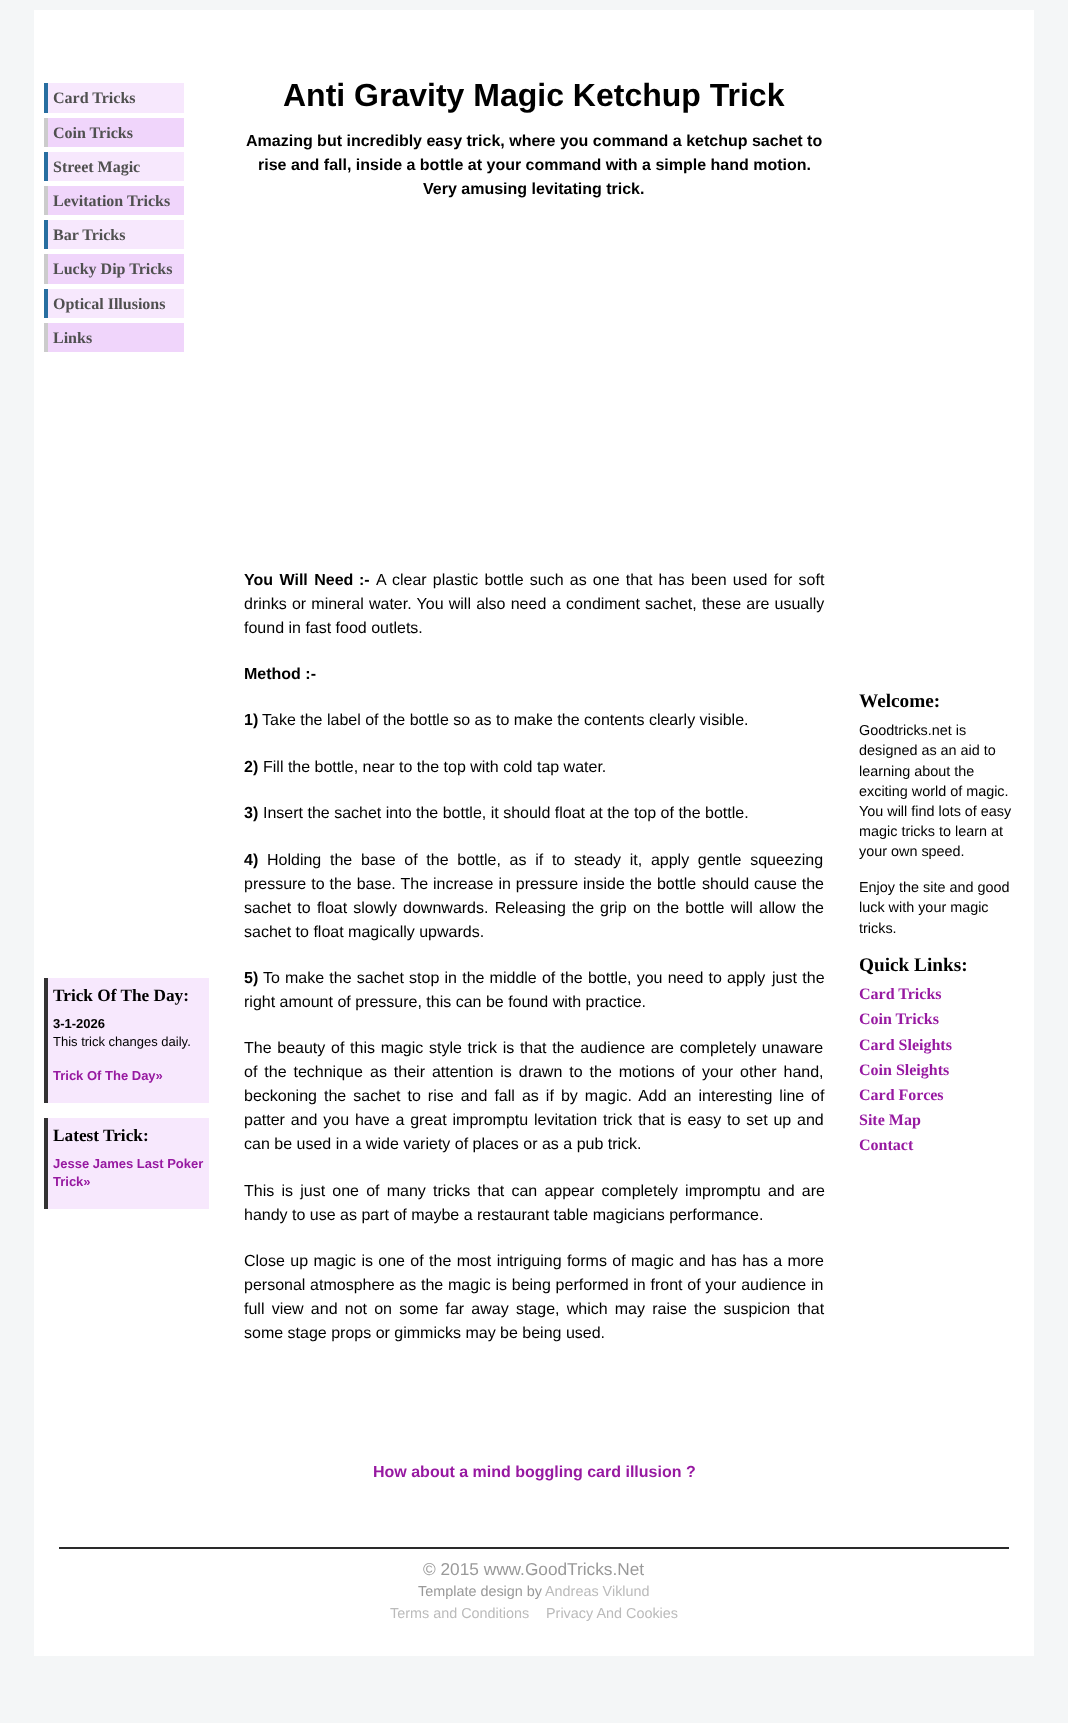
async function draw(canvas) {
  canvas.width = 1068;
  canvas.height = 1723;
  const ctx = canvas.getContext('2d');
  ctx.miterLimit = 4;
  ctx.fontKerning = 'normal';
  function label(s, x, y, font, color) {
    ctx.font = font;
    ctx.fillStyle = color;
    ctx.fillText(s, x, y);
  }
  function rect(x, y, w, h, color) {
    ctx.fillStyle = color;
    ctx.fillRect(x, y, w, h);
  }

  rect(0, 0, 1068, 1723, '#f4f6f7');
  rect(34, 10, 1000, 1646, '#fff');
  rect(48, 83, 136, 30, '#f7e8fd');
  rect(44, 83, 4, 30, '#286ea0');
  label('Card Tricks', 53, 103, 'bold 16px Liberation Serif', '#505050');
  rect(48, 118, 136, 29, '#f0d5fb');
  rect(44, 118, 4, 29, '#ccc');
  label('Coin Tricks', 53, 138, 'bold 16px Liberation Serif', '#505050');
  rect(48, 152, 136, 29, '#f7e8fd');
  rect(44, 152, 4, 29, '#286ea0');
  label('Street Magic', 53, 172, 'bold 16px Liberation Serif', '#505050');
  rect(48, 186, 136, 29, '#f0d5fb');
  rect(44, 186, 4, 29, '#ccc');
  label('Levitation Tricks', 53, 206, 'bold 16px Liberation Serif', '#505050');
  rect(48, 220, 136, 29, '#f7e8fd');
  rect(44, 220, 4, 29, '#286ea0');
  label('Bar Tricks', 53, 240, 'bold 16px Liberation Serif', '#505050');
  rect(48, 254, 136, 30, '#f0d5fb');
  rect(44, 254, 4, 30, '#ccc');
  label('Lucky Dip Tricks', 53, 274, 'bold 16px Liberation Serif', '#505050');
  rect(48, 289, 136, 29, '#f7e8fd');
  rect(44, 289, 4, 29, '#286ea0');
  label('Optical Illusions', 53, 309, 'bold 16px Liberation Serif', '#505050');
  rect(48, 323, 136, 29, '#f0d5fb');
  rect(44, 323, 4, 29, '#ccc');
  label('Links', 53, 343, 'bold 16px Liberation Serif', '#505050');
  rect(48, 978, 161, 125, '#f7e8fd');
  rect(44, 978, 4, 125, '#333');
  label('Trick Of The Day:', 53, 1001, 'bold 17.25px Liberation Serif', '#000');
  label('3-1-2026', 53, 1028, 'bold 13px Liberation Sans', '#000');
  label('This trick changes daily.', 53, 1046, '13px Liberation Sans', '#000');
  label('Trick Of The Day»', 53, 1080, 'bold 13px Liberation Sans', '#9719a1');
  rect(48, 1118, 161, 91, '#f7e8fd');
  rect(44, 1118, 4, 91, '#333');
  label('Latest Trick:', 53, 1141, 'bold 17.25px Liberation Serif', '#000');
  label('Jesse James Last Poker', 53, 1168, 'bold 13px Liberation Sans', '#9719a1');
  label('Trick»', 53, 1186, 'bold 13px Liberation Sans', '#9719a1');
  label('Anti Gravity Magic Ketchup Trick', 283, 106, 'bold 32px Liberation Sans', '#000');
  label('Amazing but incredibly easy trick, where you command a ketchup sachet to', 246, 146, 'bold 16px Liberation Sans', '#000');
  label('rise and fall, inside a bottle at your command with a simple hand motion.', 258, 170, 'bold 16px Liberation Sans', '#000');
  label('Very amusing levitating trick.', 423, 194, 'bold 16px Liberation Sans', '#000');
  ctx.wordSpacing = '2px';
  label('You Will Need', 244, 585, 'bold 16px Liberation Sans', '#000');
  ctx.wordSpacing = '0px';
  label(':-', 359, 585, 'bold 16px Liberation Sans', '#000');
  ctx.wordSpacing = '1.75px';
  label('A clear plastic bottle such as one that has', 376, 585, '16px Liberation Sans', '#000');
  label('been used for soft', 691, 585, '16px Liberation Sans', '#000');
  ctx.wordSpacing = '0.75px';
  label('drinks or mineral water. You will also need', 244, 609, '16px Liberation Sans', '#000');
  label('a condiment sachet, these are usually', 552, 609, '16px Liberation Sans', '#000');
  ctx.wordSpacing = '0px';
  label('found in fast food outlets.', 244, 633, '16px Liberation Sans', '#000');
  label('Method :-', 244, 679, 'bold 16px Liberation Sans', '#000');
  label('1)', 244, 725, 'bold 16px Liberation Sans', '#000');
  label('Take the label of the bottle so as to make the contents clearly visible.', 262, 725, '16px Liberation Sans', '#000');
  label('2)', 244, 772, 'bold 16px Liberation Sans', '#000');
  label('Fill the bottle, near to the top with cold tap water.', 263, 772, '16px Liberation Sans', '#000');
  label('3)', 244, 818, 'bold 16px Liberation Sans', '#000');
  label('Insert the sachet into the bottle, it should float at the top of the bottle.', 263, 818, '16px Liberation Sans', '#000');
  label('4)', 244, 865, 'bold 16px Liberation Sans', '#000');
  label('Holding', 267, 865, '16px Liberation Sans', '#000');
  ctx.wordSpacing = '4.25px';
  label('the base of the bottle, as if to steady it, apply gentle squeezing', 330, 865, '16px Liberation Sans', '#000');
  ctx.wordSpacing = '0.5px';
  label('pressure to the base. The increase in pressure inside the bottle', 244, 889, '16px Liberation Sans', '#000');
  label('should cause the', 702, 889, '16px Liberation Sans', '#000');
  ctx.wordSpacing = '1.75px';
  label('sachet to float slowly downwards. Releasing the', 244, 913, '16px Liberation Sans', '#000');
  label('grip on the bottle will allow the', 600, 913, '16px Liberation Sans', '#000');
  ctx.wordSpacing = '0px';
  label('sachet to float magically upwards.', 244, 937, '16px Liberation Sans', '#000');
  label('5)', 244, 983, 'bold 16px Liberation Sans', '#000');
  label('To', 263, 983, '16px Liberation Sans', '#000');
  ctx.wordSpacing = '0.75px';
  label('make the sachet stop in the middle of the bottle, you need to apply', 285, 983, '16px Liberation Sans', '#000');
  ctx.wordSpacing = '1px';
  label('just the', 772, 983, '16px Liberation Sans', '#000');
  ctx.wordSpacing = '0px';
  label('right amount of pressure, this can be found with practice.', 244, 1007, '16px Liberation Sans', '#000');
  ctx.wordSpacing = '1.25px';
  label('The beauty', 244, 1053, '16px Liberation Sans', '#000');
  label('of this magic style trick is that the audience are completely unaware', 331, 1053, '16px Liberation Sans', '#000');
  ctx.wordSpacing = '2.5px';
  label('of the technique', 244, 1077, '16px Liberation Sans', '#000');
  label('as their attention is drawn to the motions of your other hand,', 370, 1077, '16px Liberation Sans', '#000');
  ctx.wordSpacing = '2.6px';
  label('beckoning the sachet to rise and fall as if by magic. Add an interesting line', 244, 1101, '16px Liberation Sans', '#000');
  ctx.wordSpacing = '0px';
  label('of', 811, 1101, '16px Liberation Sans', '#000');
  ctx.wordSpacing = '1.4px';
  label('patter and you have a great impromptu levitation trick that', 244, 1125, '16px Liberation Sans', '#000');
  label('is easy to set up and', 670, 1125, '16px Liberation Sans', '#000');
  ctx.wordSpacing = '0px';
  label('can be used in a wide variety of places or as a pub trick.', 244, 1149, '16px Liberation Sans', '#000');
  ctx.wordSpacing = '2.75px';
  label('This is just one of many tricks that can appear completely impromptu and are', 244, 1196, '16px Liberation Sans', '#000');
  ctx.wordSpacing = '0px';
  label('handy to use as part of maybe a restaurant table magicians performance.', 244, 1220, '16px Liberation Sans', '#000');
  ctx.wordSpacing = '0.9px';
  label('Close up magic is one of the most intriguing forms of magic and has has a more', 244, 1266, '16px Liberation Sans', '#000');
  ctx.wordSpacing = '0.3px';
  label('personal atmosphere as the magic is being performed in front of your audience in', 244, 1290, '16px Liberation Sans', '#000');
  ctx.wordSpacing = '2.75px';
  label('full view and not on some far away stage, which may raise the suspicion that', 244, 1314, '16px Liberation Sans', '#000');
  ctx.wordSpacing = '0px';
  label('some stage props or gimmicks may be being used.', 244, 1338, '16px Liberation Sans', '#000');
  label('How about a mind boggling card illusion ?', 373, 1477, 'bold 16px Liberation Sans', '#9719a1');
  label('Welcome:', 859, 707, 'bold 19.25px Liberation Serif', '#000');
  label('Goodtricks.net is', 859, 735, '14.4px Liberation Sans', '#000');
  label('designed as an aid to', 859, 755, '14.4px Liberation Sans', '#000');
  label('learning about the', 859, 776, '14.4px Liberation Sans', '#000');
  label('exciting world of magic.', 859, 796, '14.4px Liberation Sans', '#000');
  label('You will find lots of easy', 859, 816, '14.4px Liberation Sans', '#000');
  label('magic tricks to learn at', 859, 836, '14.4px Liberation Sans', '#000');
  label('your own speed.', 859, 856, '14.4px Liberation Sans', '#000');
  label('Enjoy the site and good', 859, 892, '14.4px Liberation Sans', '#000');
  label('luck with your magic', 859, 912, '14.4px Liberation Sans', '#000');
  label('tricks.', 859, 933, '14.4px Liberation Sans', '#000');
  label('Quick Links:', 859, 971, 'bold 19.25px Liberation Serif', '#000');
  label('Card Tricks', 859, 999, 'bold 16px Liberation Serif', '#9719a1');
  label('Coin Tricks', 859, 1024, 'bold 16px Liberation Serif', '#9719a1');
  label('Card Sleights', 859, 1050, 'bold 16px Liberation Serif', '#9719a1');
  label('Coin Sleights', 859, 1075, 'bold 16px Liberation Serif', '#9719a1');
  label('Card Forces', 859, 1100, 'bold 16px Liberation Serif', '#9719a1');
  label('Site Map', 859, 1125, 'bold 16px Liberation Serif', '#9719a1');
  label('Contact', 859, 1150, 'bold 16px Liberation Serif', '#9719a1');
  rect(59, 1547, 950, 2, '#2a2a2a');
  label('© 2015 www.GoodTricks.Net', 423, 1575, '17.25px Liberation Sans', '#999');
  label('Template design by', 418, 1596, '14.4px Liberation Sans', '#999');
  label('Andreas Viklund', 545, 1596, '14.4px Liberation Sans', '#bbb');
  label('Terms and Conditions', 390, 1618, '14.4px Liberation Sans', '#bbb');
  label('Privacy And Cookies', 546, 1618, '14.4px Liberation Sans', '#bbb');
}

draw(document.querySelector('canvas'));
